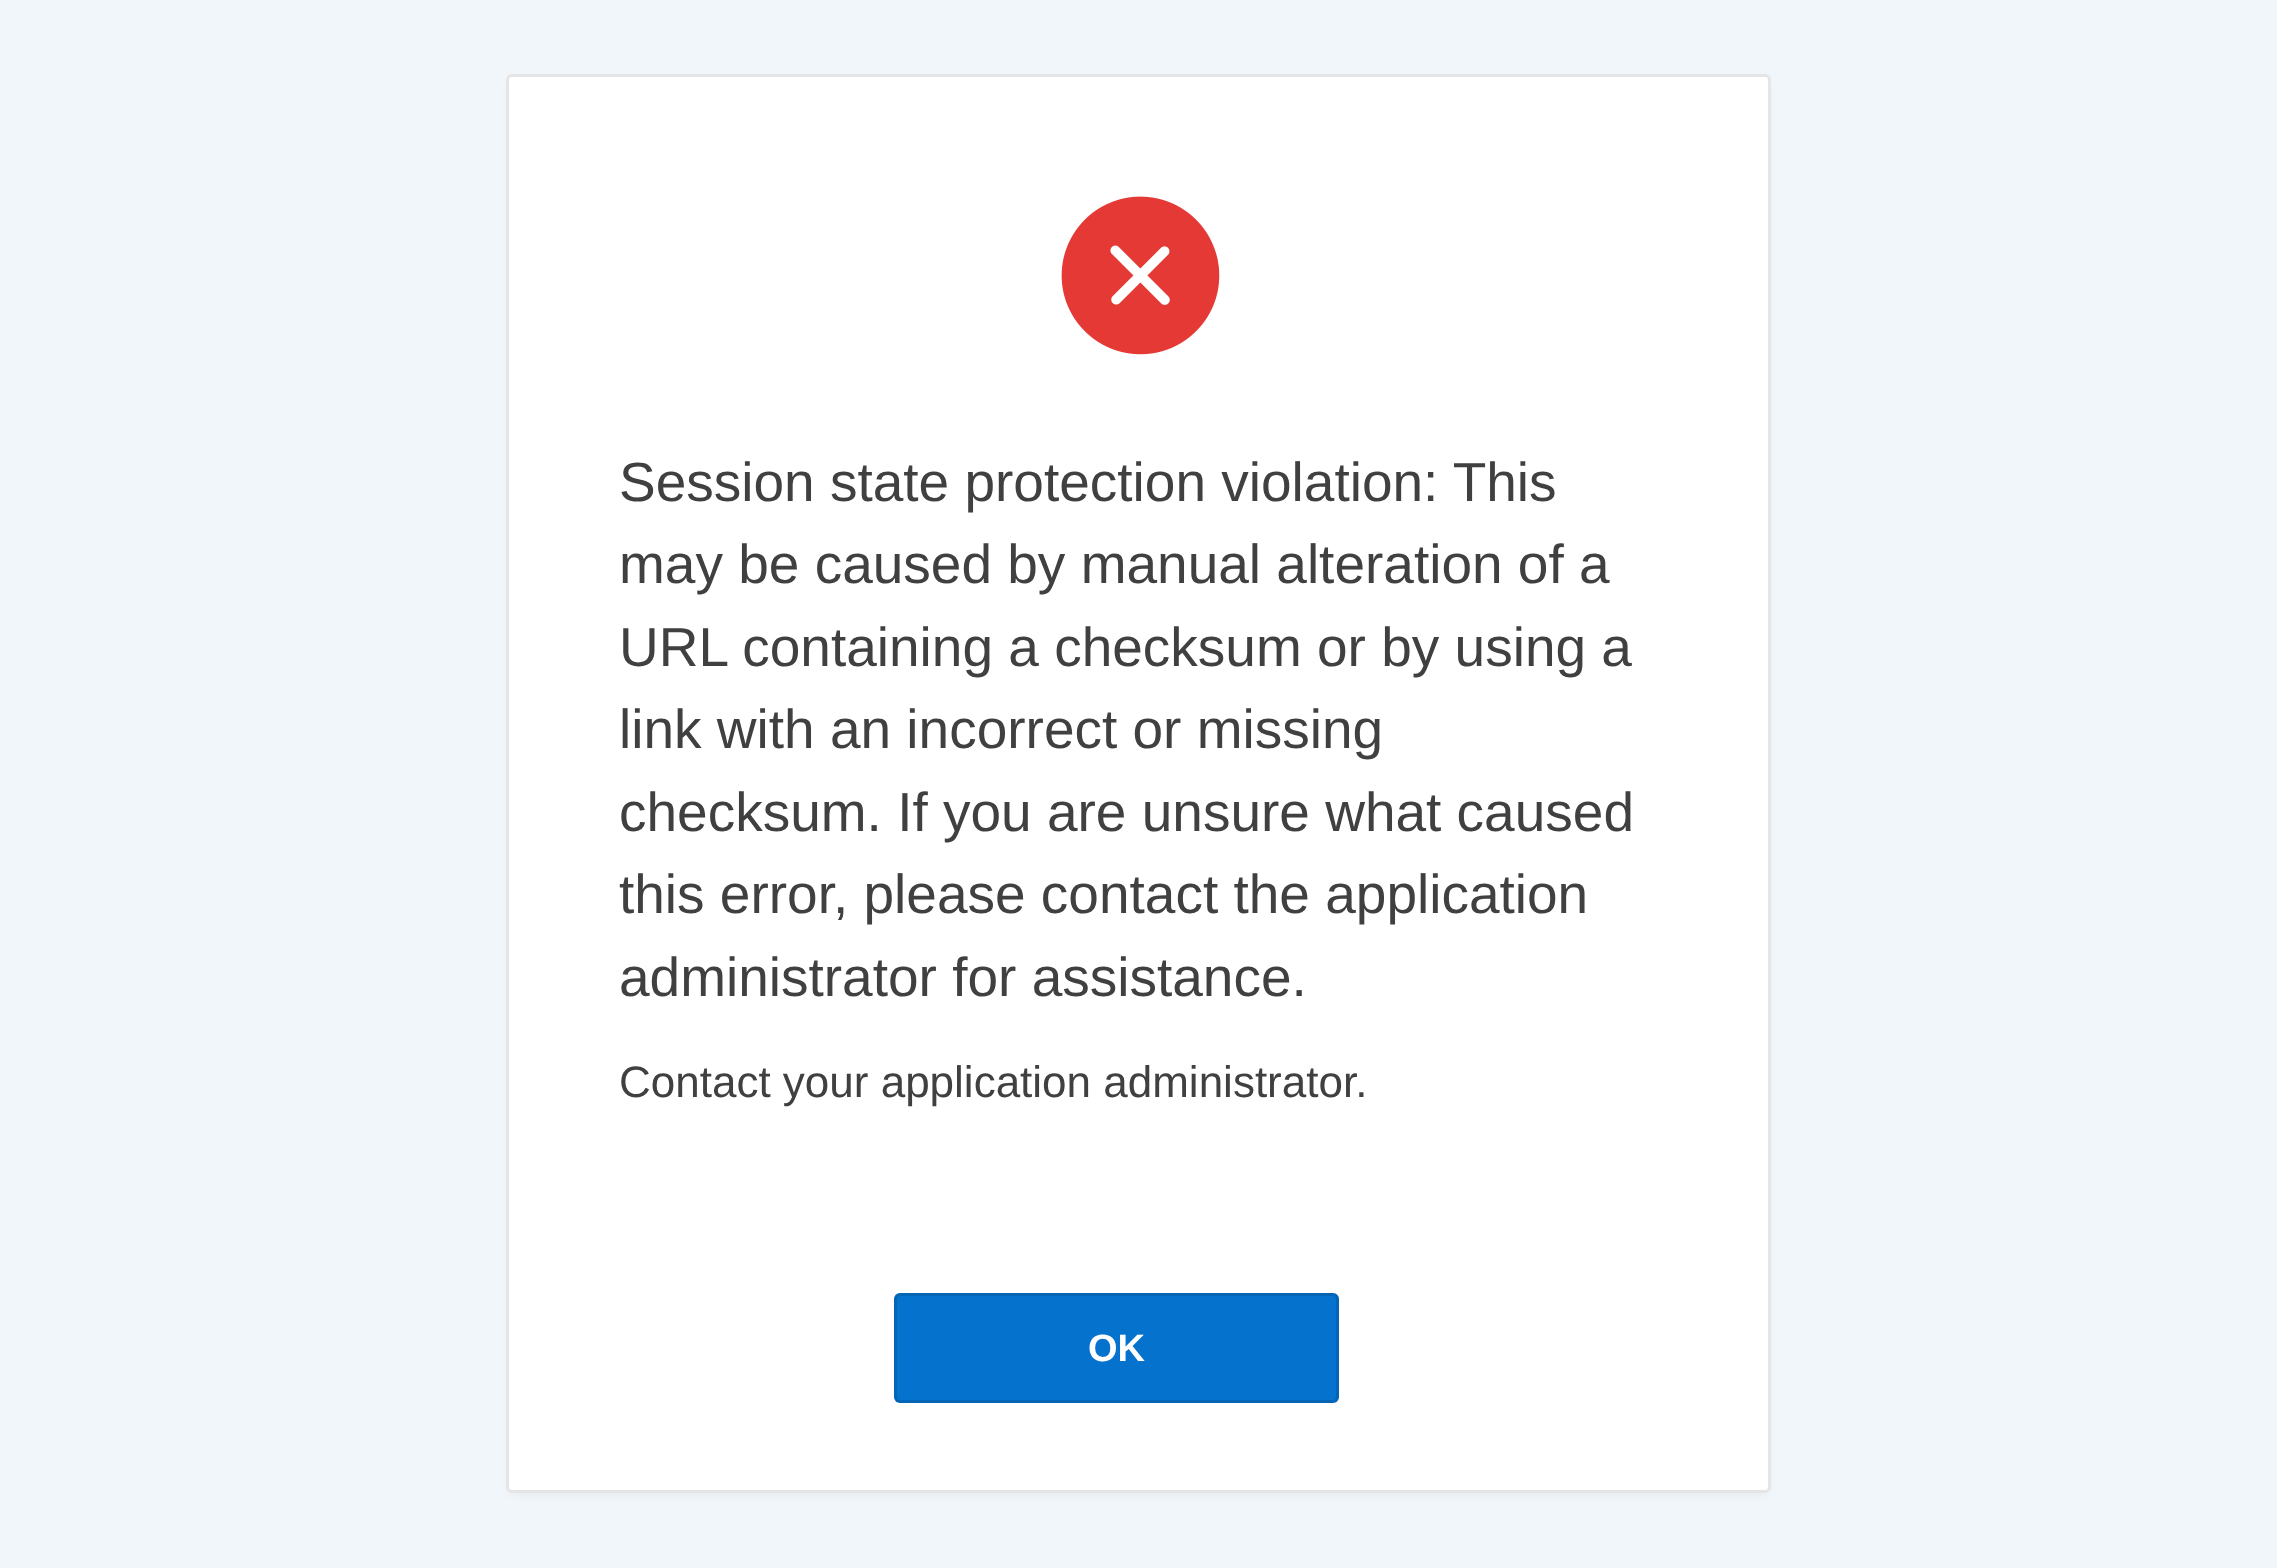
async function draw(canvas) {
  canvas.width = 2277;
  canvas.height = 1568;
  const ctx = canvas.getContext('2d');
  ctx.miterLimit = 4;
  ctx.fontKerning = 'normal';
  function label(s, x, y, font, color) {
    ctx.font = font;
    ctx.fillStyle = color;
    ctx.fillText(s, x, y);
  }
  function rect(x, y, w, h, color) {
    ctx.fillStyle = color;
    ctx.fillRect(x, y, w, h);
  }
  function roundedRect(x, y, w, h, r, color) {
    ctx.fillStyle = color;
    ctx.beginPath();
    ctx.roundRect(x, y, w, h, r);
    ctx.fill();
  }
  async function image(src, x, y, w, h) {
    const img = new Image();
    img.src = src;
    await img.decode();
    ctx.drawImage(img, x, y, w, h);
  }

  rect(0, 0, 2277, 1568, '#f1f6fa');
  ctx.fillStyle = '#00000012';
  ctx.filter = 'blur(5.5px)';
  ctx.beginPath();
  ctx.rect(512, 85, 1254, 1408);
  ctx.fill();
  ctx.filter = 'none';
  roundedRect(506, 74, 1265, 1419, 6, '#fff');
  ctx.beginPath();
  ctx.roundRect(507.5, 75.5, 1262, 1416, 4.5);
  ctx.strokeStyle = '#0000001a';
  ctx.lineWidth = 3;
  ctx.stroke();
  await image('assets/img1.png', 1061, 196, 159, 159);
  label('Session state protection violation: This', 619, 501, '55px Liberation Sans', '#404040');
  label('may be caused by manual alteration of a', 619, 583, '55px Liberation Sans', '#404040');
  label('URL containing a checksum or by using a', 619, 666, '55px Liberation Sans', '#404040');
  label('link with an incorrect or missing', 619, 748, '55px Liberation Sans', '#404040');
  label('checksum. If you are unsure what caused', 619, 831, '55px Liberation Sans', '#404040');
  label('this error, please contact the application', 619, 913, '55px Liberation Sans', '#404040');
  label('administrator for assistance.', 619, 996, '55px Liberation Sans', '#404040');
  label('Contact your application administrator.', 619, 1097, '44px Liberation Sans', '#404040');
  roundedRect(894, 1293, 445, 110, 6, '#0572ce');
  ctx.beginPath();
  ctx.roundRect(895.5, 1294.5, 442, 107, 4.5);
  ctx.strokeStyle = '#0000001f';
  ctx.stroke();
  label('OK', 1088, 1361, 'bold 38px Liberation Sans', '#fff');
}

draw(document.querySelector('canvas'));
